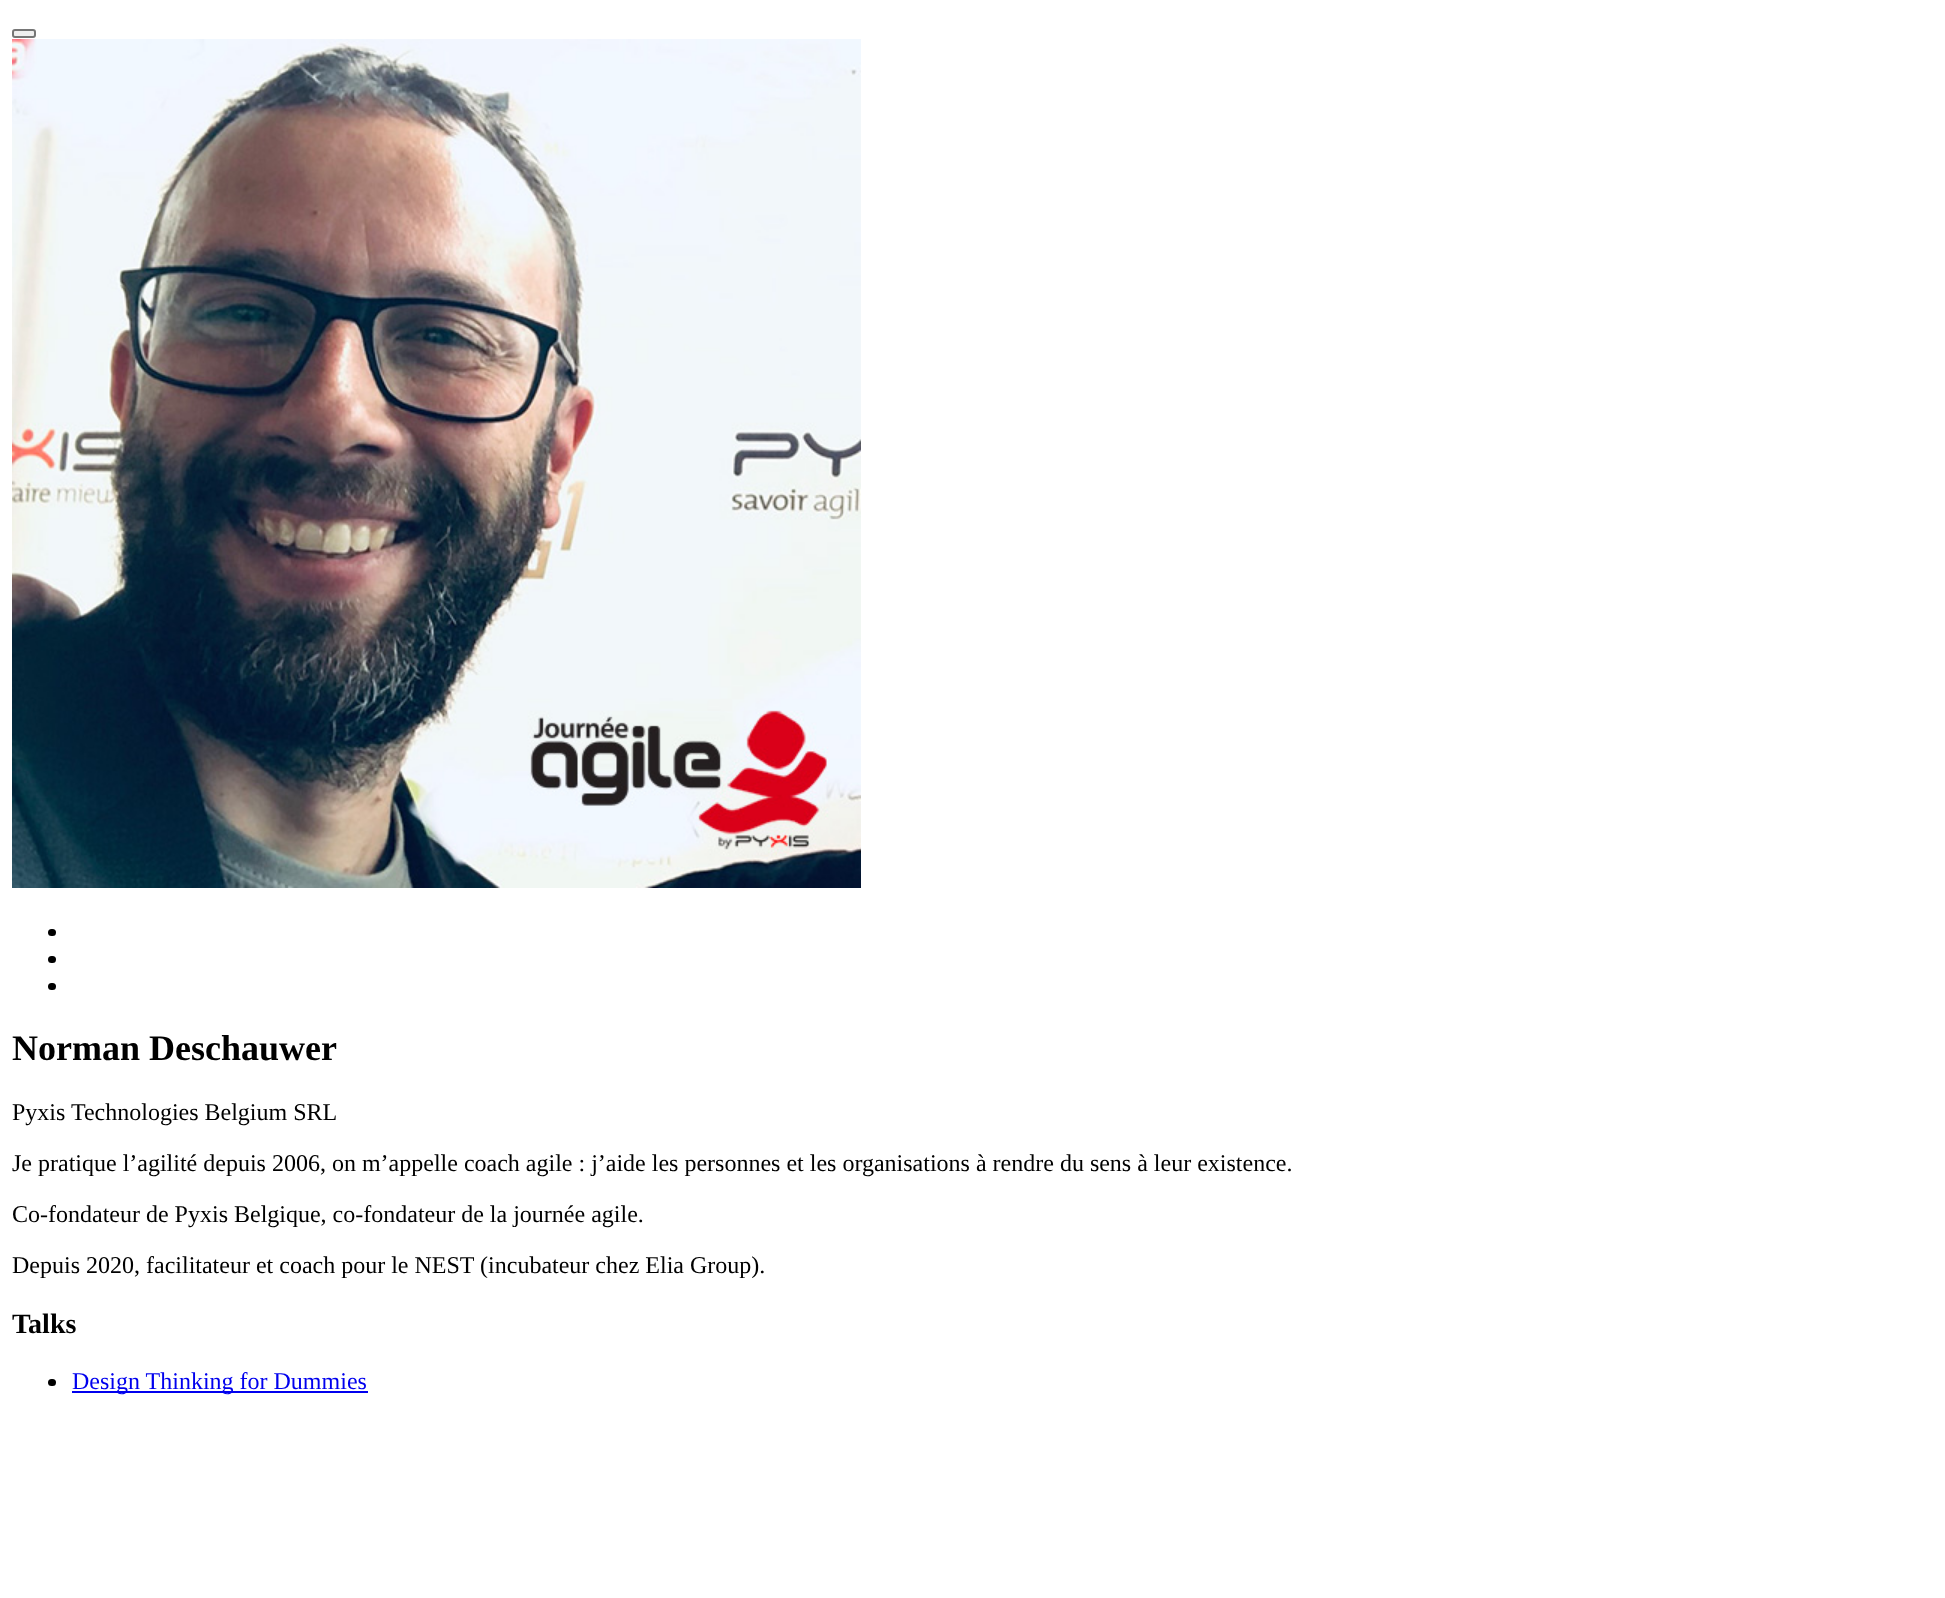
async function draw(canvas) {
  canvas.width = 1945;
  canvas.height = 1598;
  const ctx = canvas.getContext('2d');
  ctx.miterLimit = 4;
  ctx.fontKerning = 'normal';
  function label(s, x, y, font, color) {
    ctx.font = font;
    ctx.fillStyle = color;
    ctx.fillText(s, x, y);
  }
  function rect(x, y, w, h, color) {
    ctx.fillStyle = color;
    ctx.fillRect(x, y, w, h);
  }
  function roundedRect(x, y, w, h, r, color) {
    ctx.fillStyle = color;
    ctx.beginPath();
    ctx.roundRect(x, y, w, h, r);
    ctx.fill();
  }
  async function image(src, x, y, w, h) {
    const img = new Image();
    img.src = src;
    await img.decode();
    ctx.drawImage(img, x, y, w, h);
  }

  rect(0, 0, 1945, 1598, '#fff');
  ctx.fillStyle = '#efefef';
  ctx.beginPath();
  ctx.roundRect(13, 30, 22, 7, 2);
  ctx.fill();
  ctx.strokeStyle = '#767676';
  ctx.lineWidth = 2;
  ctx.stroke();
  await image('assets/img1.png', 12, 39, 849, 849);
  roundedRect(48, 929, 8, 7, 3.5, '#000');
  roundedRect(48, 956, 8, 7, 3.5, '#000');
  roundedRect(48, 983, 8, 7, 3.5, '#000');
  label('Norman Deschauwer', 12, 1060, 'bold 36px Liberation Serif', '#000');
  label('Pyxis Technologies Belgium SRL', 12, 1120, '24px Liberation Serif', '#000');
  label('Je pratique l’agilité depuis 2006, on m’appelle coach agile : j’aide les personnes et les organisations à rendre du sens à leur existence.', 12, 1171, '24px Liberation Serif', '#000');
  label('Co-fondateur de Pyxis Belgique, co-fondateur de la journée agile.', 12, 1222, '24px Liberation Serif', '#000');
  label('Depuis 2020, facilitateur et coach pour le NEST (incubateur chez Elia Group).', 12, 1273, '24px Liberation Serif', '#000');
  label('Talks', 12, 1333, 'bold 28px Liberation Serif', '#000');
  roundedRect(48, 1379, 8, 7, 3.5, '#000');
  rect(72, 1391, 296, 2, '#00e');
  label('Design Thinking for Dummies', 72, 1389, '24px Liberation Serif', '#00e');
}

draw(document.querySelector('canvas'));
